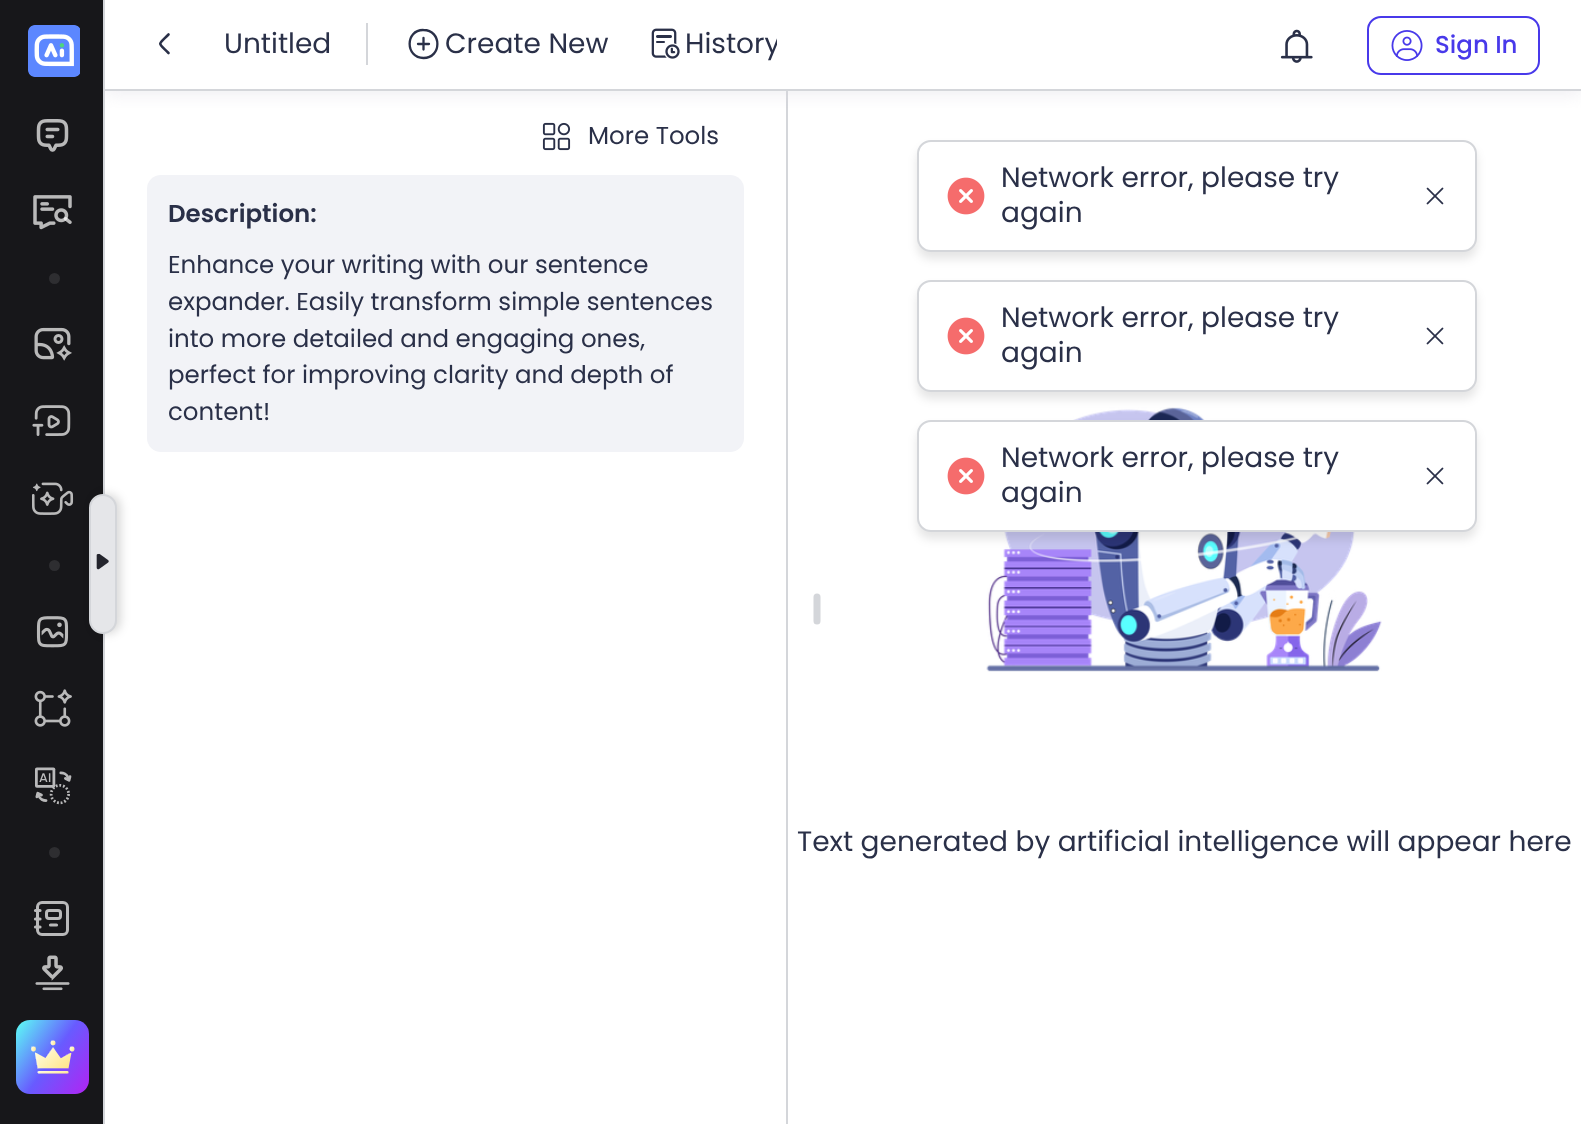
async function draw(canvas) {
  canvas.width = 1581;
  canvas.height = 1124;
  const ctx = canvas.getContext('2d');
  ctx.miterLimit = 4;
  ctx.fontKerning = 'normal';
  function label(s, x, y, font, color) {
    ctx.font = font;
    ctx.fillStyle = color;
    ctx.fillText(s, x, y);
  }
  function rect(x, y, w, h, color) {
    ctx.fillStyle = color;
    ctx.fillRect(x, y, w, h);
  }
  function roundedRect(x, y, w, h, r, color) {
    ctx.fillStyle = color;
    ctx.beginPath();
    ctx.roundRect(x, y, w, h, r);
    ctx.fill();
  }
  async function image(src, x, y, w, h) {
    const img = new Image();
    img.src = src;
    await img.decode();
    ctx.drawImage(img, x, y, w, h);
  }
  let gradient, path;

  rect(0, 0, 1581, 1124, '#fff');
  rect(0, 0, 103, 1124, '#17171a');
  rect(103, 0, 2, 1124, '#d4d6da');
  await image('assets/img1.png', 28, 25, 52, 52);
  await image('assets/img2.png', 36, 119, 33, 33);
  await image('assets/img3.png', 33, 195, 39, 35);
  ctx.fillStyle = '#2e2e31';
  ctx.beginPath();
  ctx.arc(54.5, 278.5, 5.5, 0, 2 * Math.PI);
  ctx.fill();
  await image('assets/img4.png', 34, 327, 38, 34);
  await image('assets/img5.png', 32, 405, 39, 31);
  await image('assets/img6.png', 32, 482, 42, 33);
  ctx.beginPath();
  ctx.arc(54.5, 565.5, 5.5, 0, 2 * Math.PI);
  ctx.fill();
  await image('assets/img7.png', 36, 616, 33, 32);
  await image('assets/img8.png', 34, 689, 38, 38);
  await image('assets/img9.png', 35, 767, 37, 38);
  ctx.beginPath();
  ctx.arc(54.5, 852.5, 5.5, 0, 2 * Math.PI);
  ctx.fill();
  ctx.beginPath();
  ctx.roundRect(37.5, 902.5, 30, 32, 4.5);
  ctx.strokeStyle = '#b9b9ba';
  ctx.lineWidth = 3;
  ctx.stroke();
  path = new Path2D('M50.5 925H56.5M35.5 927H40M35.5 919H40M35.5 910.5H40');
  ctx.lineWidth = 3.2;
  ctx.lineCap = 'round';
  ctx.stroke(path);
  ctx.beginPath();
  ctx.roundRect(46.5, 910.5, 14, 8, 2.5);
  ctx.lineWidth = 3;
  ctx.stroke();
  ctx.fillStyle = '#00000026';
  ctx.filter = 'blur(5px)';
  ctx.beginPath();
  ctx.roundRect(93, 494, 28, 140, 14);
  ctx.fill();
  ctx.filter = 'none';
  ctx.fillStyle = '#e5e6e9';
  ctx.beginPath();
  ctx.roundRect(90, 495, 26, 138, 13);
  ctx.fill();
  ctx.strokeStyle = '#d4d6da';
  ctx.lineWidth = 2;
  ctx.stroke();
  await image('assets/img10.png', 96, 553, 13, 17);
  await image('assets/img11.png', 35, 955, 35, 36);
  gradient = ctx.createLinearGradient(11, 1028, 94, 1086);
  gradient.addColorStop(0, '#5cfff5');
  gradient.addColorStop(0.5, '#685bff');
  gradient.addColorStop(1, '#b124f3');
  ctx.fillStyle = gradient;
  ctx.beginPath();
  ctx.roundRect(16, 1020, 73, 74, 14);
  ctx.fill();
  await image('assets/img12.png', 31, 1040, 44, 34);
  rect(786, 91, 2, 1033, '#d4d6da');
  ctx.save();
  ctx.beginPath();
  ctx.rect(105, 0, 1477, 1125);
  ctx.clip();
  ctx.beginPath();
  ctx.rect(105, 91, 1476, 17);
  ctx.clip();
  ctx.fillStyle = '#d9d7e266';
  ctx.filter = 'blur(8px)';
  ctx.beginPath();
  ctx.rect(105, 4, 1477, 91);
  ctx.fill();
  ctx.filter = 'none';
  ctx.restore();
  path = new Path2D('M168.5 34.5C157.5 45.5 157.5 42 168.5 53');
  ctx.strokeStyle = '#2a3048';
  ctx.lineWidth = 2.6;
  ctx.stroke(path);
  label('Untitled', 224, 53, '28px Poppins', '#2a3048');
  rect(366, 23, 2, 42, '#d4d6da');
  path = new Path2D('M423.5 58C442 58 442 30 423.5 30C405 29.5 405 58 423.5 58Z');
  ctx.lineWidth = 2.3;
  ctx.lineCap = 'butt';
  ctx.lineJoin = 'round';
  ctx.stroke(path);
  path = new Path2D('M423.5 38V49.5M418 44H429');
  ctx.lineCap = 'round';
  ctx.stroke(path);
  label('Create New', 445, 53, '28px Poppins', '#2a3048');
  await image('assets/img13.png', 651, 28, 29, 31);
  ctx.save();
  ctx.beginPath();
  ctx.rect(105, 0, 672, 88);
  ctx.clip();
  label('History', 685, 53, '28px Poppins', '#2a3048');
  ctx.restore();
  await image('assets/img14.png', 542, 122, 29, 29);
  label('More Tools', 588, 144, '24.5px Poppins', '#2a3048');
  roundedRect(147, 175, 597, 277, 14, '#f2f3f7');
  label('Description:', 168, 222, '600 24.5px Poppins', '#2a3048');
  label('Enhance your writing with our sentence', 168, 273, '24.5px Poppins', '#2a3048');
  label('expander. Easily transform simple sentences', 168, 310, '24.5px Poppins', '#2a3048');
  label('into more detailed and engaging ones,', 168, 347, '24.5px Poppins', '#2a3048');
  label('perfect for improving clarity and depth of', 168, 383, '24.5px Poppins', '#2a3048');
  label('content!', 168, 420, '24.5px Poppins', '#2a3048');
  path = new Path2D('M817 597V621');
  ctx.strokeStyle = '#d4d6da';
  ctx.lineWidth = 7;
  ctx.stroke(path);
  await image('assets/img15.png', 986, 407, 396, 265);
  label('Text generated by artificial intelligence will appear here', 797, 851, '28px Poppins', '#2a3048');
  rect(105, 89, 1476, 2, '#d4d6da');
  await image('assets/img16.png', 1280, 29, 33, 34);
  ctx.beginPath();
  ctx.roundRect(1368, 17, 171, 57, 13);
  ctx.strokeStyle = '#4839ea';
  ctx.lineWidth = 2;
  ctx.lineJoin = 'miter';
  ctx.stroke();
  await image('assets/img17.png', 1391, 30, 32, 31);
  label('Sign In', 1435, 53, '500 24.5px Poppins', '#4839ea');
  ctx.fillStyle = '#0000001a';
  ctx.filter = 'blur(5px)';
  ctx.beginPath();
  ctx.roundRect(917, 147, 560, 112, 14);
  ctx.fill();
  ctx.filter = 'none';
  ctx.fillStyle = '#fff';
  ctx.beginPath();
  ctx.roundRect(918, 141, 558, 110, 13);
  ctx.fill();
  ctx.strokeStyle = '#d4d6da';
  ctx.stroke();
  await image('assets/img18.png', 947, 177, 38, 38);
  label('Network error, please try', 1001, 187, '28px Poppins', '#2a3048');
  label('again', 1001, 222, '28px Poppins', '#2a3048');
  await image('assets/img19.png', 1426, 187, 18, 18);
  ctx.fillStyle = '#0000001a';
  ctx.filter = 'blur(5px)';
  ctx.beginPath();
  ctx.roundRect(917, 287, 560, 112, 14);
  ctx.fill();
  ctx.filter = 'none';
  ctx.fillStyle = '#fff';
  ctx.beginPath();
  ctx.roundRect(918, 281, 558, 110, 13);
  ctx.fill();
  ctx.stroke();
  await image('assets/img18.png', 947, 317, 38, 38);
  label('Network error, please try', 1001, 327, '28px Poppins', '#2a3048');
  label('again', 1001, 362, '28px Poppins', '#2a3048');
  await image('assets/img19.png', 1426, 327, 18, 18);
  ctx.fillStyle = '#0000001a';
  ctx.filter = 'blur(5px)';
  ctx.beginPath();
  ctx.roundRect(917, 427, 560, 112, 14);
  ctx.fill();
  ctx.filter = 'none';
  ctx.fillStyle = '#fff';
  ctx.beginPath();
  ctx.roundRect(918, 421, 558, 110, 13);
  ctx.fill();
  ctx.stroke();
  await image('assets/img18.png', 947, 457, 38, 38);
  label('Network error, please try', 1001, 467, '28px Poppins', '#2a3048');
  label('again', 1001, 502, '28px Poppins', '#2a3048');
  await image('assets/img19.png', 1426, 467, 18, 18);
}

draw(document.querySelector('canvas'));
